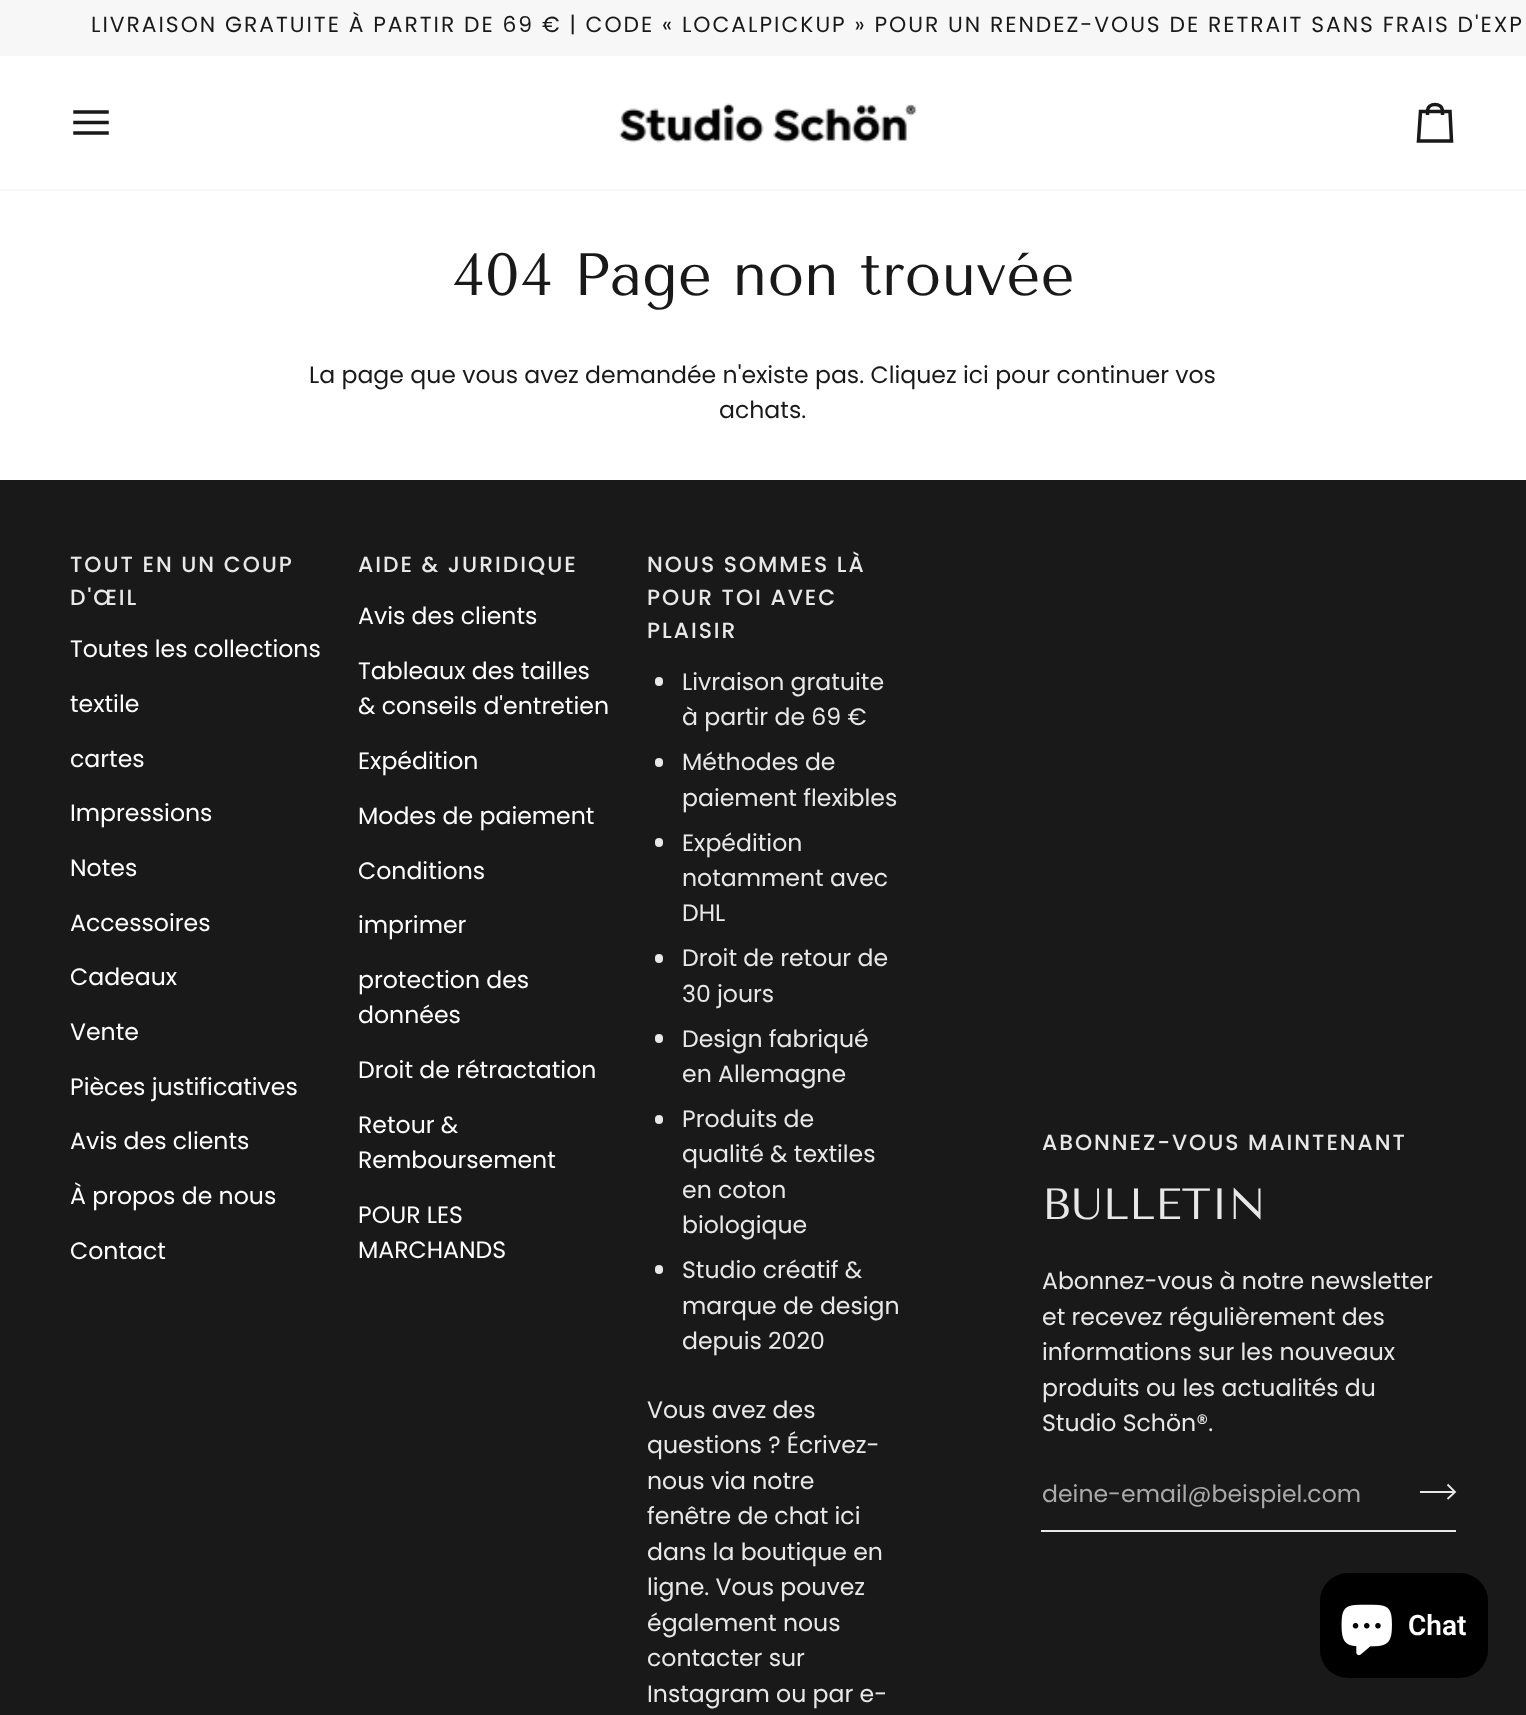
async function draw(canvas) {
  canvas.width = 1526;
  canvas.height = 1715;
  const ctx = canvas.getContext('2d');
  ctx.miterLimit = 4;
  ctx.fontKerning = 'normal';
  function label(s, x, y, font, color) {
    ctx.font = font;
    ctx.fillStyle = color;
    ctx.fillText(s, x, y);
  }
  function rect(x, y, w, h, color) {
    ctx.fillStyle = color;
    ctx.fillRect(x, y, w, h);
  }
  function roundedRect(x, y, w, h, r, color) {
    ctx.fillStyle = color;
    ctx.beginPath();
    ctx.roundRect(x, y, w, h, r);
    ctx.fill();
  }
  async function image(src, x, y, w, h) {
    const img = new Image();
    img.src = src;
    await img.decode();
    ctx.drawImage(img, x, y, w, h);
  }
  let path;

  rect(0, 0, 1526, 1715, '#fff');
  rect(0, 0, 1526, 56, '#f7f7f7');
  ctx.letterSpacing = '1.97px';
  label('LIVRAISON GRATUITE À PARTIR DE 69 € | CODE « LOCALPICKUP » POUR UN RENDEZ-VOUS DE RETRAIT SANS FRAIS D\'EXP', 91, 32, '21.88px Poppins', '#191919');
  rect(0, 189, 1526, 2, '#f7f7f7');
  path = new Path2D('M107 112H75M107 122.5H75M107 133H75');
  ctx.strokeStyle = '#191919';
  ctx.lineWidth = 3.5;
  ctx.lineCap = 'square';
  ctx.stroke(path);
  await image('assets/img1.png', 619, 103, 298, 40);
  path = new Path2D('M1442.5 115V111.5H1450L1451.5 141H1418.5L1420.5 111.5H1427.5C1427.5 102 1442.5 102 1442.5 111.5H1427.5V115');
  ctx.lineCap = 'butt';
  ctx.stroke(path);
  ctx.letterSpacing = '0px';
  label('404 Page non trouvée', 452, 295, '59.5px Tenor Sans', '#191919');
  label('La page que vous avez demandée n\'existe pas. Cliquez ici pour continuer vos', 309, 383, '23.6px Poppins', '#191919');
  label('achats.', 719, 418, '23.6px Poppins', '#191919');
  rect(0, 480, 1526, 1235, '#191919');
  ctx.letterSpacing = '1.97px';
  label('TOUT EN UN COUP', 70, 572, '500 21.88px Poppins', '#e8e8e8');
  label('D\'ŒIL', 70, 605, '500 21.88px Poppins', '#e8e8e8');
  ctx.letterSpacing = '0px';
  label('Toutes les collections', 70, 657, '23.6px Poppins', '#fff');
  label('textile', 70, 712, '23.6px Poppins', '#fff');
  label('cartes', 70, 767, '23.6px Poppins', '#fff');
  label('Impressions', 70, 821, '23.6px Poppins', '#fff');
  label('Notes', 70, 876, '23.6px Poppins', '#fff');
  label('Accessoires', 70, 931, '23.6px Poppins', '#fff');
  label('Cadeaux', 70, 985, '23.6px Poppins', '#fff');
  label('Vente', 70, 1040, '23.6px Poppins', '#fff');
  label('Pièces justificatives', 70, 1095, '23.6px Poppins', '#fff');
  label('Avis des clients', 70, 1149, '23.6px Poppins', '#fff');
  label('À propos de nous', 70, 1204, '23.6px Poppins', '#fff');
  label('Contact', 70, 1259, '23.6px Poppins', '#fff');
  ctx.letterSpacing = '1.97px';
  label('AIDE & JURIDIQUE', 358, 572, '500 21.88px Poppins', '#e8e8e8');
  ctx.letterSpacing = '0px';
  label('Avis des clients', 358, 624, '23.6px Poppins', '#fff');
  label('Tableaux des tailles', 358, 679, '23.6px Poppins', '#fff');
  label('& conseils d\'entretien', 358, 714, '23.6px Poppins', '#fff');
  label('Expédition', 358, 769, '23.6px Poppins', '#fff');
  label('Modes de paiement', 358, 824, '23.6px Poppins', '#fff');
  label('Conditions', 358, 879, '23.6px Poppins', '#fff');
  label('imprimer', 358, 933, '23.6px Poppins', '#fff');
  label('protection des', 358, 988, '23.6px Poppins', '#fff');
  label('données', 358, 1023, '23.6px Poppins', '#fff');
  label('Droit de rétractation', 358, 1078, '23.6px Poppins', '#fff');
  label('Retour &', 358, 1133, '23.6px Poppins', '#fff');
  label('Remboursement', 358, 1168, '23.6px Poppins', '#fff');
  label('POUR LES', 358, 1223, '23.6px Poppins', '#fff');
  label('MARCHANDS', 358, 1258, '23.6px Poppins', '#fff');
  ctx.letterSpacing = '1.97px';
  label('NOUS SOMMES LÀ', 647, 572, '500 21.88px Poppins', '#e8e8e8');
  label('POUR TOI AVEC', 647, 605, '500 21.88px Poppins', '#e8e8e8');
  label('PLAISIR', 647, 638, '500 21.88px Poppins', '#e8e8e8');
  roundedRect(655, 677, 8, 9, 4, '#e8e8e8');
  ctx.letterSpacing = '0px';
  label('Livraison gratuite', 682, 690, '23.6px Poppins', '#e8e8e8');
  label('à partir de 69 €', 682, 725, '23.6px Poppins', '#e8e8e8');
  roundedRect(655, 758, 8, 9, 4, '#e8e8e8');
  label('Méthodes de', 682, 770, '23.6px Poppins', '#e8e8e8');
  label('paiement flexibles', 682, 806, '23.6px Poppins', '#e8e8e8');
  roundedRect(655, 838, 8, 9, 4, '#e8e8e8');
  label('Expédition', 682, 851, '23.6px Poppins', '#e8e8e8');
  label('notamment avec', 682, 886, '23.6px Poppins', '#e8e8e8');
  label('DHL', 682, 921, '23.6px Poppins', '#e8e8e8');
  roundedRect(655, 954, 8, 9, 4, '#e8e8e8');
  label('Droit de retour de', 682, 966, '23.6px Poppins', '#e8e8e8');
  label('30 jours', 682, 1002, '23.6px Poppins', '#e8e8e8');
  roundedRect(655, 1034, 8, 9, 4, '#e8e8e8');
  label('Design fabriqué', 682, 1047, '23.6px Poppins', '#e8e8e8');
  label('en Allemagne', 682, 1082, '23.6px Poppins', '#e8e8e8');
  roundedRect(655, 1115, 8, 9, 4, '#e8e8e8');
  label('Produits de', 682, 1127, '23.6px Poppins', '#e8e8e8');
  label('qualité & textiles', 682, 1162, '23.6px Poppins', '#e8e8e8');
  label('en coton', 682, 1198, '23.6px Poppins', '#e8e8e8');
  label('biologique', 682, 1233, '23.6px Poppins', '#e8e8e8');
  roundedRect(655, 1265, 8, 9, 4, '#e8e8e8');
  label('Studio créatif &', 682, 1278, '23.6px Poppins', '#e8e8e8');
  label('marque de design', 682, 1314, '23.6px Poppins', '#e8e8e8');
  label('depuis 2020', 682, 1349, '23.6px Poppins', '#e8e8e8');
  label('Vous avez des', 647, 1418, '23.6px Poppins', '#e8e8e8');
  label('questions ? Écrivez-', 647, 1453, '23.6px Poppins', '#e8e8e8');
  label('nous via notre', 647, 1489, '23.6px Poppins', '#e8e8e8');
  label('fenêtre de chat ici', 647, 1524, '23.6px Poppins', '#e8e8e8');
  label('dans la boutique en', 647, 1560, '23.6px Poppins', '#e8e8e8');
  label('ligne. Vous pouvez', 647, 1595, '23.6px Poppins', '#e8e8e8');
  label('également nous', 647, 1631, '23.6px Poppins', '#e8e8e8');
  label('contacter sur', 647, 1666, '23.6px Poppins', '#e8e8e8');
  label('Instagram ou par e-', 647, 1702, '23.6px Poppins', '#e8e8e8');
  ctx.letterSpacing = '1.97px';
  label('ABONNEZ-VOUS MAINTENANT', 1042, 1150, '500 21.88px Poppins', '#e8e8e8');
  ctx.letterSpacing = '0px';
  label('BULLETIN', 1042, 1219, '43.75px Tenor Sans', '#e8e8e8');
  label('Abonnez-vous à notre newsletter', 1042, 1289, '23.6px Poppins', '#e8e8e8');
  label('et recevez régulièrement des', 1042, 1325, '23.6px Poppins', '#e8e8e8');
  label('informations sur les nouveaux', 1042, 1360, '23.6px Poppins', '#e8e8e8');
  label('produits ou les actualités du', 1042, 1396, '23.6px Poppins', '#e8e8e8');
  label('Studio Schön®.', 1042, 1431, '23.6px Poppins', '#e8e8e8');
  rect(1041, 1530, 415, 2, '#e8e8e8');
  label('deine-email@beispiel.com', 1042, 1502, '23.6px Poppins', '#aaa');
  path = new Path2D('M1447.5 1484.5L1455 1492L1447.5 1499M1420 1492H1455');
  ctx.strokeStyle = '#e8e8e8';
  ctx.lineWidth = 1.8;
  ctx.stroke(path);
  roundedRect(1320, 1573, 168, 105, 28, '#000');
  await image('assets/img2.png', 1341, 1604, 51, 52);
  label('Chat', 1408, 1635, '600 28px Roboto', '#fff');
}

draw(document.querySelector('canvas'));
